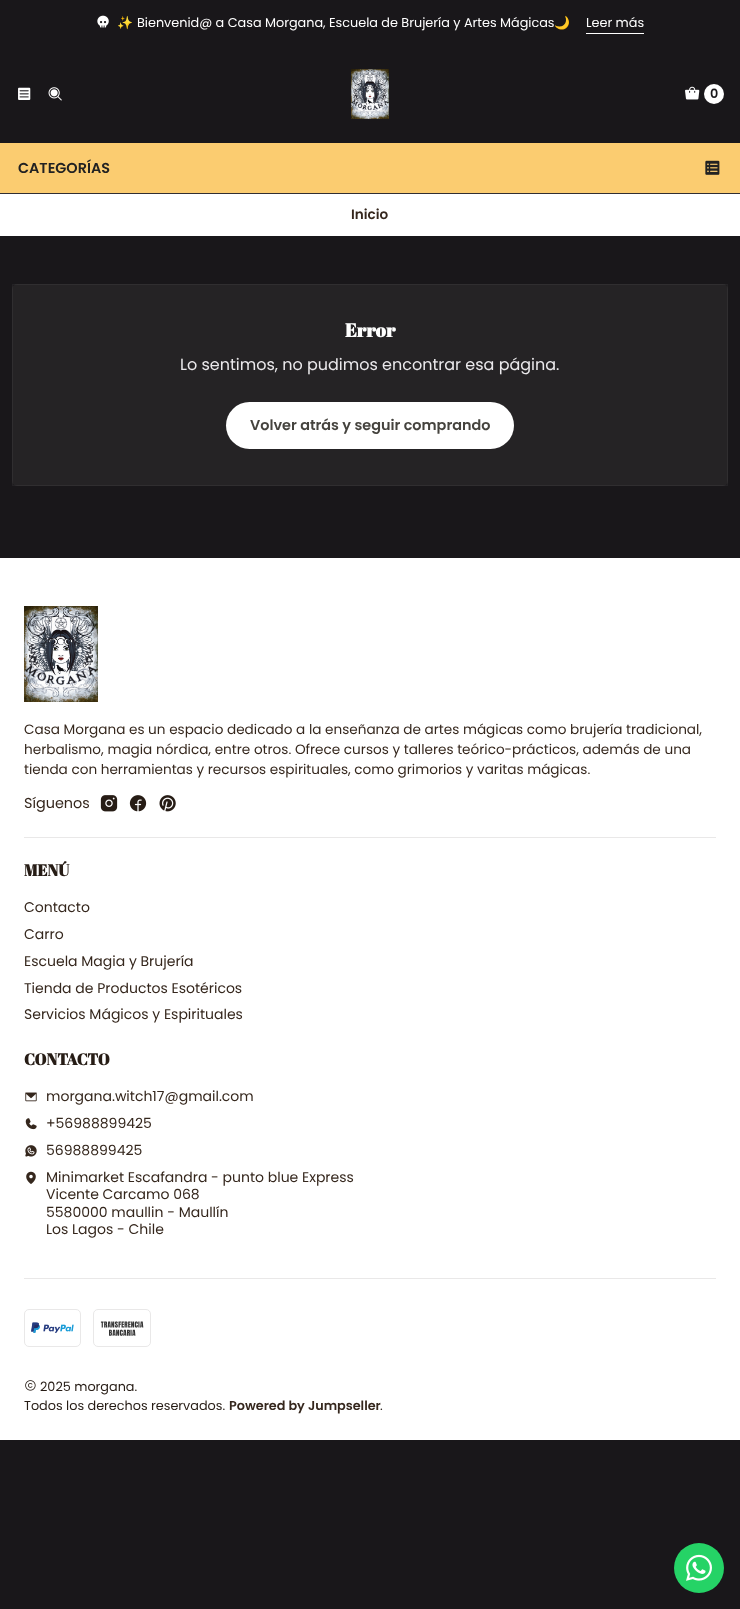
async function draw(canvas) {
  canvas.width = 740;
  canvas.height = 1609;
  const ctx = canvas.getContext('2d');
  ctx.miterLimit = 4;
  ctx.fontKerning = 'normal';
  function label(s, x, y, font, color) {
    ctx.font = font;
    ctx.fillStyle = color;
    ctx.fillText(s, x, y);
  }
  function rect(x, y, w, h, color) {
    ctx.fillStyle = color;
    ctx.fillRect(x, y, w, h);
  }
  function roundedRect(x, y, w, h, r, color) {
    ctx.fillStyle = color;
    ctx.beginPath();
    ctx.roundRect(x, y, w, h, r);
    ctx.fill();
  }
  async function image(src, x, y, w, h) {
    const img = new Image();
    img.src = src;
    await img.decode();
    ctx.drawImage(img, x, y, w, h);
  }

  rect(0, 0, 740, 1609, '#19171a');
  await image('assets/img1.png', 97, 15, 12, 13);
  label('✨', 117, 27, '12.8px Noto Color Emoji', '#fff');
  label('Bienvenid@ a Casa Morgana, Escuela de Brujería y Artes Mágicas', 137, 27, '12.8px Poppins', '#fff');
  label('🌙', 554, 27, '12.8px Noto Color Emoji', '#fff');
  rect(586, 33, 58, 1, '#fff');
  label('Leer más', 586, 27, '12.8px Poppins', '#fff');
  rect(0, 193, 740, 1, '#302e31');
  await image('assets/img2.png', 18, 87, 13, 13);
  await image('assets/img3.png', 48, 87, 14, 14);
  await image('assets/img4.png', 351, 69, 38, 50);
  await image('assets/img5.png', 685, 86, 15, 14);
  ctx.fillStyle = '#fff';
  ctx.beginPath();
  ctx.arc(714, 94, 10, 0, 2 * Math.PI);
  ctx.fill();
  label('0', 710, 98, '600 12.8px Poppins', '#19171a');
  rect(0, 143, 740, 50, '#fbcc70');
  label('CATEGORÍAS', 18, 173, '600 14.4px Poppins', '#222');
  await image('assets/img6.png', 705, 160, 15, 15);
  rect(0, 194, 740, 42, '#fff');
  label('Inicio', 351, 219, '600 13.6px Poppins', '#35271d');
  roundedRect(12, 284, 716, 202, 5, '#252325');
  ctx.strokeStyle = '#ffffff0d';
  ctx.strokeRect(12.5, 284.5, 715, 201);
  label('Error', 345, 337, 'bold 19px Abril Fatface', '#fff');
  label('Lo sentimos, no pudimos encontrar esa página.', 180, 370, '16px Poppins', '#ebe9ec');
  roundedRect(226, 402, 288, 47, 23.5, '#fff');
  label('Volver atrás y seguir comprando', 250, 430, '600 14.4px Poppins', '#45433e');
  rect(0, 558, 740, 882, '#fff');
  await image('assets/img7.png', 24, 606, 74, 96);
  label('Casa Morgana es un espacio dedicado a la enseñanza de artes mágicas como brujería tradicional,', 24, 734, '13.6px Poppins', '#35271d');
  label('herbalismo, magia nórdica, entre otros. Ofrece cursos y talleres teórico-prácticos, además de una', 24, 754, '13.6px Poppins', '#35271d');
  label('tienda con herramientas y recursos espirituales, como grimorios y varitas mágicas.', 24, 774, '13.6px Poppins', '#35271d');
  label('Síguenos', 24, 808, '14.4px Poppins', '#35271d');
  await image('assets/img8.png', 100, 795, 18, 17);
  await image('assets/img9.png', 129, 795, 18, 17);
  await image('assets/img10.png', 159, 795, 17, 17);
  rect(24, 837, 692, 1, '#e9e8e8');
  label('MENÚ', 24, 876, 'bold 16px Abril Fatface', '#261c15');
  label('Contacto', 24, 912, '14px Poppins', '#35271d');
  label('Carro', 24, 939, '14px Poppins', '#35271d');
  label('Escuela Magia y Brujería', 24, 966, '14px Poppins', '#35271d');
  label('Tienda de Productos Esotéricos', 24, 993, '14px Poppins', '#35271d');
  label('Servicios Mágicos y Espirituales', 24, 1019, '14px Poppins', '#35271d');
  label('CONTACTO', 24, 1065, 'bold 16px Abril Fatface', '#261c15');
  await image('assets/img11.png', 25, 1092, 12, 10);
  label('morgana.witch17@gmail.com', 46, 1101, '14px Poppins', '#35271d');
  await image('assets/img12.png', 25, 1118, 12, 12);
  label('+56988899425', 46, 1128, '14px Poppins', '#35271d');
  await image('assets/img13.png', 25, 1145, 12, 12);
  label('56988899425', 46, 1155, '14px Poppins', '#35271d');
  await image('assets/img14.png', 26, 1171, 10, 13);
  label('Minimarket Escafandra - punto blue Express', 46, 1182, '14px Poppins', '#35271d');
  label('Vicente Carcamo 068', 46, 1199, '14px Poppins', '#35271d');
  label('5580000 maullin - Maullín', 46, 1217, '14px Poppins', '#35271d');
  label('Los Lagos - Chile', 46, 1234, '14px Poppins', '#35271d');
  rect(24, 1278, 692, 1, '#e9e8e8');
  ctx.beginPath();
  ctx.roundRect(24.5, 1309.5, 56, 37, 4.5);
  ctx.strokeStyle = '#e9e8e8';
  ctx.stroke();
  await image('assets/img15.png', 31, 1322, 43, 11);
  ctx.beginPath();
  ctx.roundRect(93.5, 1309.5, 57, 37, 4.5);
  ctx.stroke();
  await image('assets/img16.png', 100, 1321, 44, 15);
  await image('assets/img17.png', 25, 1380, 11, 11);
  label('2025 morgana.', 40, 1391, '12.8px Poppins', '#261c15');
  label('Todos los derechos reservados.', 24, 1410, '12.8px Poppins', '#261c15');
  label('Powered by Jumpseller', 229, 1410, '600 12.8px Poppins', '#35271d');
  label('.', 380, 1410, '12.8px Poppins', '#261c15');
  ctx.fillStyle = '#25d366';
  ctx.beginPath();
  ctx.arc(699, 1568, 25, 0, 2 * Math.PI);
  ctx.fill();
  await image('assets/img18.png', 686, 1554, 26, 27);
}

draw(document.querySelector('canvas'));
